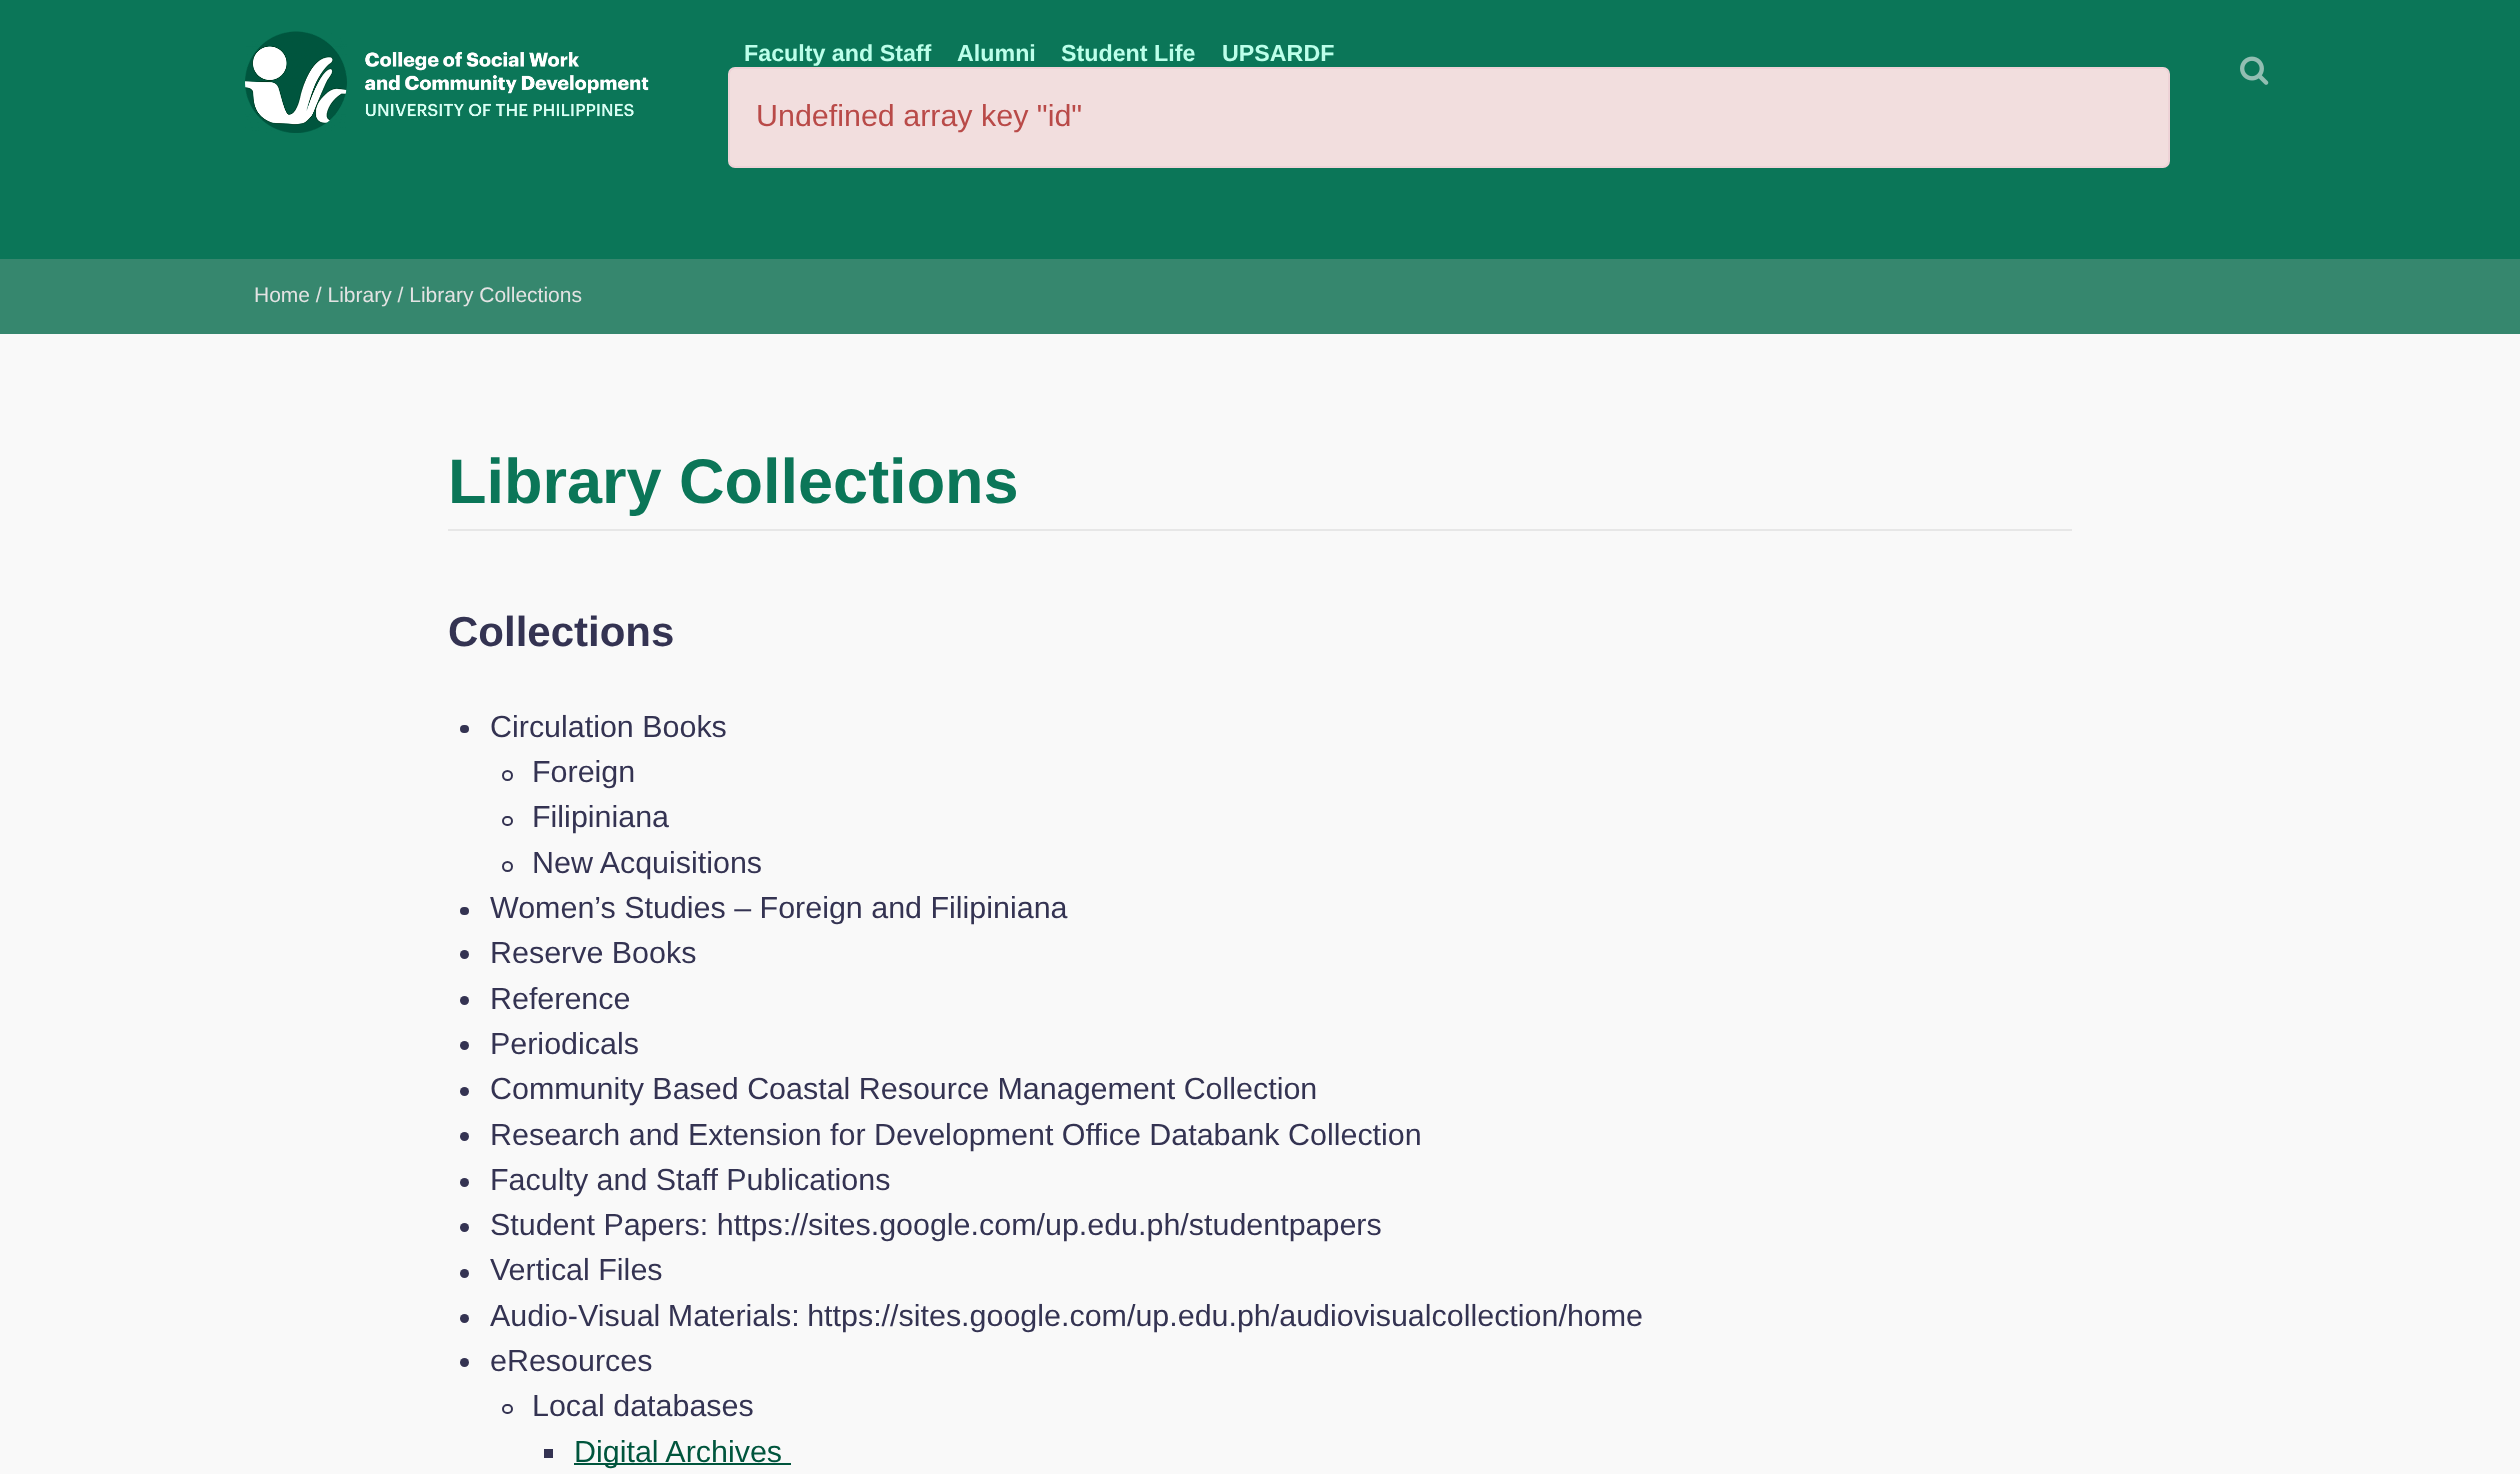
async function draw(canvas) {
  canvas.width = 2520;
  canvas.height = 1474;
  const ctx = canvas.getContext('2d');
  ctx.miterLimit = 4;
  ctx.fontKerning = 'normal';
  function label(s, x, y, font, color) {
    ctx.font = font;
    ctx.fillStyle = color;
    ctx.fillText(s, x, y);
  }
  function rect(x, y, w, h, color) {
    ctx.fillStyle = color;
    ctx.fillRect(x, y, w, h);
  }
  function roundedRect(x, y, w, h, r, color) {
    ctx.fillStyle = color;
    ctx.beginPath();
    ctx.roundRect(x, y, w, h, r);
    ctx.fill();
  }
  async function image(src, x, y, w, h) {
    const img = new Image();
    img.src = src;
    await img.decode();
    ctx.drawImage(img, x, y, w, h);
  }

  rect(0, 0, 2520, 1474, '#f9f9f9');
  rect(0, 0, 2520, 259, '#0b7658');
  label('Faculty and Staff', 744, 61, 'bold 23.25px Liberation Sans', '#bcffea');
  label('Alumni', 957, 61, 'bold 23.25px Liberation Sans', '#bcffea');
  label('Student Life', 1061, 61, 'bold 23.25px Liberation Sans', '#bcffea');
  label('UPSARDF', 1222, 61, 'bold 23.25px Liberation Sans', '#bcffea');
  await image('assets/img1.png', 245, 31, 404, 102);
  await image('assets/img2.png', 2240, 56, 29, 29);
  ctx.fillStyle = '#f2dede';
  ctx.beginPath();
  ctx.roundRect(729, 68, 1440, 99, 6);
  ctx.fill();
  ctx.strokeStyle = '#eed3d7';
  ctx.lineWidth = 2;
  ctx.stroke();
  label('Undefined array key "id"', 756, 126, '30.45px Liberation Sans', '#b94a48');
  rect(0, 259, 2520, 75, '#36876e');
  label('Home / Library / Library Collections', 254, 302, '21px Liberation Sans', '#e3e3e3');
  rect(448, 529, 1624, 2, '#e7e7e7');
  label('Library Collections', 448, 503, 'bold 63px Liberation Sans', '#0b7658');
  label('Collections', 448, 646, 'bold 42px Liberation Sans', '#343352');
  roundedRect(460, 725, 9, 8, 4, '#343352');
  label('Circulation Books', 490, 737, '30.45px Liberation Sans', '#343352');
  ctx.beginPath();
  ctx.arc(507.5, 775.5, 4.5, 0, 2 * Math.PI);
  ctx.strokeStyle = '#343352';
  ctx.stroke();
  label('Foreign', 532, 782, '30.45px Liberation Sans', '#343352');
  ctx.beginPath();
  ctx.roundRect(503, 817, 9, 8, 4);
  ctx.stroke();
  label('Filipiniana', 532, 827, '30.45px Liberation Sans', '#343352');
  ctx.beginPath();
  ctx.arc(507.5, 866.5, 4.5, 0, 2 * Math.PI);
  ctx.stroke();
  label('New Acquisitions', 532, 873, '30.45px Liberation Sans', '#343352');
  roundedRect(460, 907, 9, 8, 4, '#343352');
  label('Women’s Studies – Foreign and Filipiniana', 490, 918, '30.45px Liberation Sans', '#343352');
  ctx.beginPath();
  ctx.arc(464.5, 954.5, 4.5, 0, 2 * Math.PI);
  ctx.fill();
  label('Reserve Books', 490, 963, '30.45px Liberation Sans', '#343352');
  ctx.beginPath();
  ctx.arc(464.5, 1000.5, 4.5, 0, 2 * Math.PI);
  ctx.fill();
  label('Reference', 490, 1009, '30.45px Liberation Sans', '#343352');
  ctx.beginPath();
  ctx.arc(464.5, 1045.5, 4.5, 0, 2 * Math.PI);
  ctx.fill();
  label('Periodicals', 490, 1054, '30.45px Liberation Sans', '#343352');
  ctx.beginPath();
  ctx.arc(464.5, 1091.5, 4.5, 0, 2 * Math.PI);
  ctx.fill();
  label('Community Based Coastal Resource Management Collection', 490, 1099, '30.45px Liberation Sans', '#343352');
  ctx.beginPath();
  ctx.arc(464.5, 1136.5, 4.5, 0, 2 * Math.PI);
  ctx.fill();
  label('Research and Extension for Development Office Databank Collection', 490, 1145, '30.45px Liberation Sans', '#343352');
  ctx.beginPath();
  ctx.arc(464.5, 1182.5, 4.5, 0, 2 * Math.PI);
  ctx.fill();
  label('Faculty and Staff Publications', 490, 1190, '30.45px Liberation Sans', '#343352');
  ctx.beginPath();
  ctx.arc(464.5, 1227.5, 4.5, 0, 2 * Math.PI);
  ctx.fill();
  label('Student Papers: https://sites.google.com/up.edu.ph/studentpapers', 490, 1235, '30.45px Liberation Sans', '#343352');
  ctx.beginPath();
  ctx.arc(464.5, 1273.5, 4.5, 0, 2 * Math.PI);
  ctx.fill();
  label('Vertical Files', 490, 1280, '30.45px Liberation Sans', '#343352');
  ctx.beginPath();
  ctx.arc(464.5, 1318.5, 4.5, 0, 2 * Math.PI);
  ctx.fill();
  ctx.wordSpacing = '-1px';
  label('Audio-Visual Materials: https://sites.google.com/up.edu.ph/audiovisualcollection/home', 490, 1326, '30.45px Liberation Sans', '#343352');
  ctx.beginPath();
  ctx.arc(464.5, 1362.5, 4.5, 0, 2 * Math.PI);
  ctx.fill();
  ctx.wordSpacing = '0px';
  label('eResources', 490, 1371, '30.45px Liberation Sans', '#343352');
  ctx.beginPath();
  ctx.roundRect(503, 1405, 9, 8, 4);
  ctx.stroke();
  label('Local databases', 532, 1416, '30.45px Liberation Sans', '#343352');
  rect(544, 1449, 9, 9, '#343352');
  rect(574, 1463, 217, 2, '#00553d');
  label('Digital Archives', 574, 1462, '30.45px Liberation Sans', '#00553d');
}

draw(document.querySelector('canvas'));
